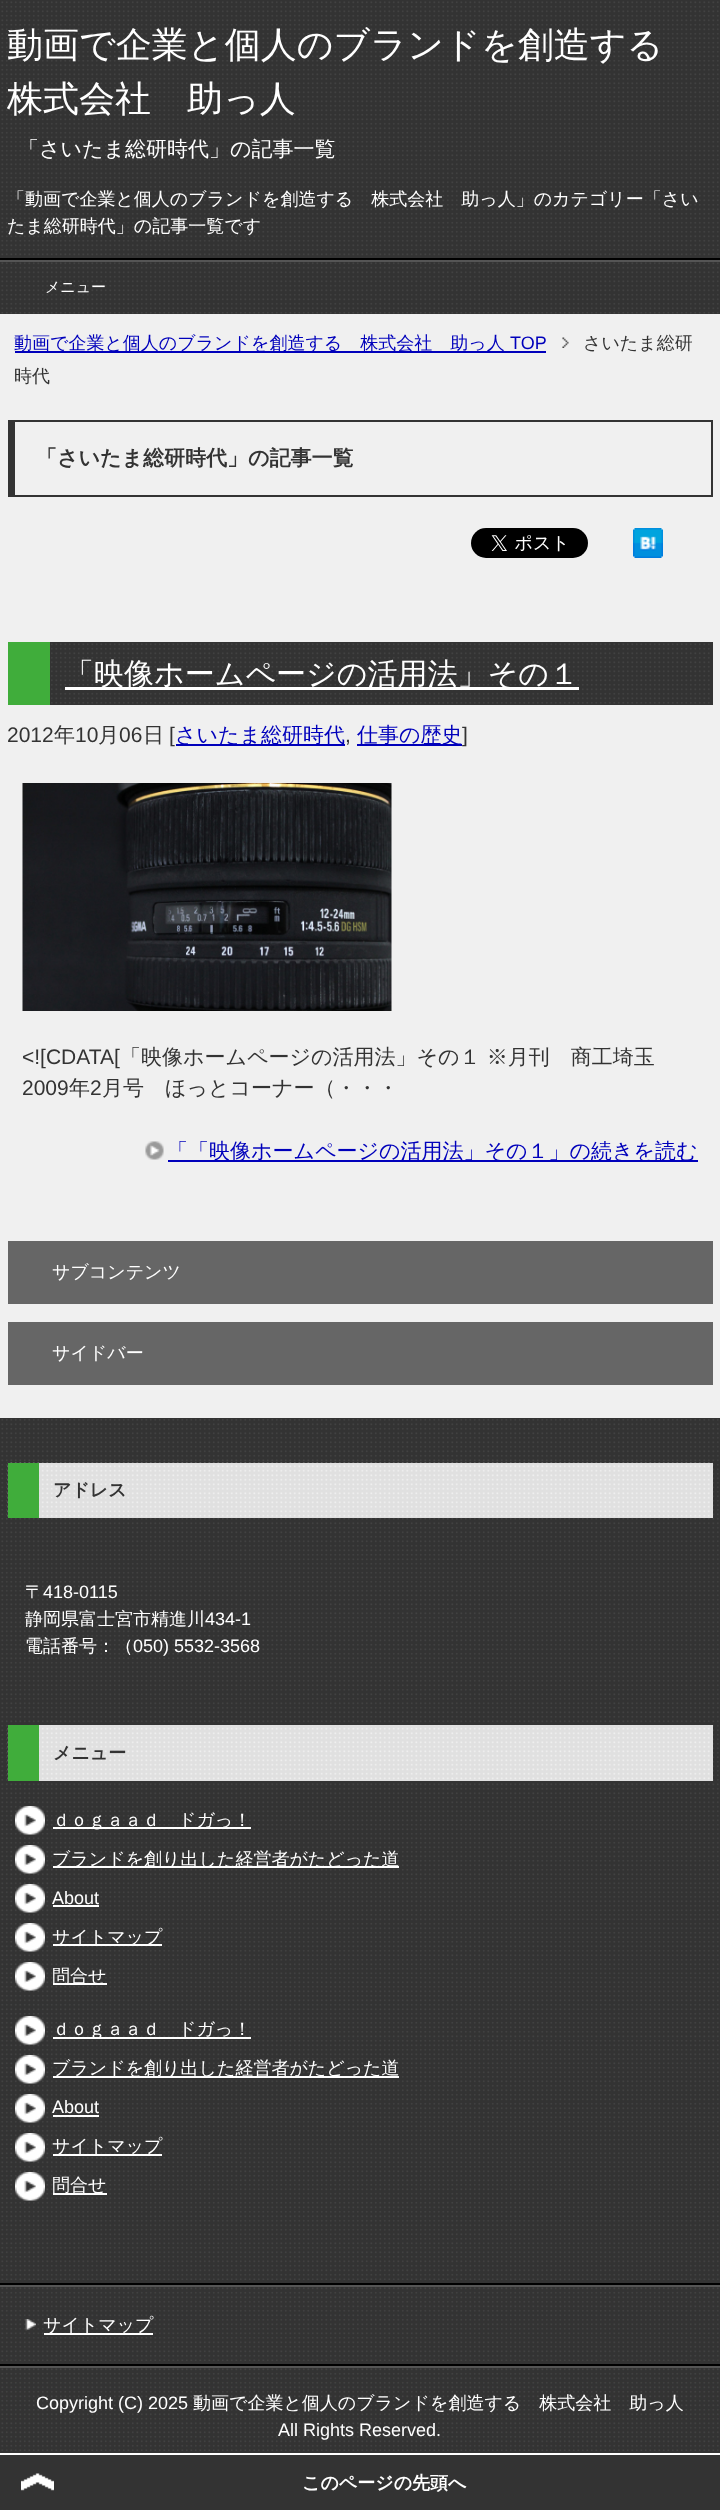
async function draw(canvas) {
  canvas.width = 720;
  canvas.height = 2510;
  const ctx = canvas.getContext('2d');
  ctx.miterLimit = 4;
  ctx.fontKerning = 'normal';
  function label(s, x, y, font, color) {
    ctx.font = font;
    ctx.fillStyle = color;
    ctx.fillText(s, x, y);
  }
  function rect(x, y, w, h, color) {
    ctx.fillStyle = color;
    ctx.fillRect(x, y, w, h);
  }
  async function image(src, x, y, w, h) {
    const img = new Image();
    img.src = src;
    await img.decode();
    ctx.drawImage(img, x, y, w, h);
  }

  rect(0, 0, 720, 2510, '#333');
  await image('assets/img1.png', 1, 1, 718, 2360);
  rect(0, 258, 720, 2, '#000');
  label('動画で企業と個人のブランドを創造する', 7, 57, '500 36px WenQuanYi Zen Hei', '#fff');
  label('株式会社　助っ人', 7, 111, '500 36px WenQuanYi Zen Hei', '#fff');
  label('「さいたま総研時代」の記事一覧', 18, 156, '500 21px WenQuanYi Zen Hei', '#fff');
  label('「動画で企業と個人のブランドを創造する　株式会社　助っ人」のカテゴリー「さい', 7, 205, '500 18px WenQuanYi Zen Hei', '#fff');
  label('たま総研時代」の記事一覧です', 7, 232, '500 18px WenQuanYi Zen Hei', '#fff');
  rect(0, 260, 720, 2, '#555');
  label('メニュー', 45, 292, '500 15px WenQuanYi Zen Hei', '#fff');
  rect(0, 314, 720, 1104, '#f0f0f0');
  rect(15, 351, 531, 2, '#00b');
  label('動画で企業と個人のブランドを創造する　株式会社　助っ人', 14, 349, '500 18px WenQuanYi Zen Hei', '#00b');
  label('TOP', 510, 349, '18px Liberation Sans', '#00b');
  await image('assets/img2.png', 562, 337, 7, 11);
  label('さいたま総研', 583, 349, '500 18px WenQuanYi Zen Hei', '#333');
  label('時代', 14, 382, '500 18px WenQuanYi Zen Hei', '#333');
  rect(8, 420, 705, 2, '#333');
  rect(711, 420, 2, 77, '#333');
  rect(8, 495, 705, 2, '#333');
  rect(8, 420, 7, 77, '#333');
  label('「さいたま総研時代」の記事一覧', 36, 465, 'bold 21px WenQuanYi Zen Hei', '#333');
  await image('assets/img3.png', 471, 528, 117, 30);
  await image('assets/img4.png', 633, 528, 30, 30);
  rect(50, 642, 663, 63, '#333');
  await image('assets/img5.png', 51, 643, 659, 61);
  rect(8, 642, 42, 63, '#40ad3b');
  rect(65, 687, 514, 3, '#fff');
  label('「映像ホームページの活用法」その１', 64, 684, '500 30px WenQuanYi Zen Hei', '#fff');
  label('2012', 7, 742, '21px Liberation Sans', '#333');
  label('年', 54, 742, '500 21px WenQuanYi Zen Hei', '#333');
  label('10', 75, 742, '21px Liberation Sans', '#333');
  label('月', 98, 742, '500 21px WenQuanYi Zen Hei', '#333');
  label('06', 119, 742, '21px Liberation Sans', '#333');
  label('日', 143, 742, '500 21px WenQuanYi Zen Hei', '#333');
  label('[', 169, 742, '21px Liberation Sans', '#333');
  rect(176, 744, 169, 2, '#00b');
  label('さいたま総研時代', 175, 742, '500 21px WenQuanYi Zen Hei', '#00b');
  label(',', 345, 742, '21px Liberation Sans', '#333');
  rect(357, 744, 105, 2, '#00b');
  label('仕事の歴史', 357, 742, '500 21px WenQuanYi Zen Hei', '#00b');
  label(']', 462, 742, '21px Liberation Sans', '#333');
  await image('assets/img6.png', 22, 783, 370, 228);
  label('<![CDATA[', 22, 1064, '21px Liberation Sans', '#333');
  label('「映像ホームページの活用法」その１ ※月刊　商工埼玉', 120, 1064, '500 21px WenQuanYi Zen Hei', '#333');
  label('2009', 22, 1095, '21px Liberation Sans', '#333');
  label('年', 69, 1095, '500 21px WenQuanYi Zen Hei', '#333');
  label('2', 90, 1095, '21px Liberation Sans', '#333');
  label('月号　ほっとコーナー（・・・', 102, 1095, '500 21px WenQuanYi Zen Hei', '#333');
  await image('assets/img7.png', 145, 1141, 19, 19);
  rect(168, 1160, 530, 2, '#00b');
  label('「「映像ホームページの活用法」その１」の続きを読む', 167, 1158, '500 21px WenQuanYi Zen Hei', '#00b');
  rect(8, 1241, 705, 63, '#666');
  label('サブコンテンツ', 52, 1278, '500 18px WenQuanYi Zen Hei', '#fff');
  rect(8, 1322, 705, 63, '#666');
  label('サイドバー', 52, 1359, '500 18px WenQuanYi Zen Hei', '#fff');
  rect(1, 1419, 718, 862, '#333');
  await image('assets/img8.png', 1, 1419, 718, 861);
  rect(0, 2283, 720, 2, '#000');
  rect(39, 1463, 674, 55, '#e0e0e0');
  await image('assets/img9.png', 7, 1462, 706, 55);
  rect(8, 1463, 31, 55, '#40ad3b');
  label('アドレス', 53, 1496, 'bold 18px WenQuanYi Zen Hei', '#333');
  label('〒', 25, 1598, '500 18px WenQuanYi Zen Hei', '#fff');
  label('418-0115', 43, 1598, '18px Liberation Sans', '#fff');
  label('静岡県富士宮市精進川', 25, 1625, '500 18px WenQuanYi Zen Hei', '#fff');
  label('434-1', 205, 1625, '18px Liberation Sans', '#fff');
  label('電話番号：（', 25, 1652, '500 18px WenQuanYi Zen Hei', '#fff');
  label('050) 5532-3568', 133, 1652, '18px Liberation Sans', '#fff');
  rect(39, 1725, 674, 56, '#e0e0e0');
  await image('assets/img10.png', 7, 1725, 706, 55);
  rect(8, 1725, 31, 56, '#40ad3b');
  label('メニュー', 53, 1759, 'bold 18px WenQuanYi Zen Hei', '#333');
  await image('assets/img11.png', 15, 1806, 30, 29);
  rect(53, 1827, 198, 2, '#fff');
  label('ｄｏｇａａｄ　ドガっ！', 52, 1826, '500 18px WenQuanYi Zen Hei', '#fff');
  await image('assets/img12.png', 15, 1845, 30, 29);
  rect(53, 1866, 346, 2, '#fff');
  label('ブランドを創り出した経営者がたどった道', 52, 1865, '500 18px WenQuanYi Zen Hei', '#fff');
  await image('assets/img13.png', 15, 1884, 30, 29);
  label('About', 52, 1904, '18px Liberation Sans', '#fff');
  rect(53, 1905, 46, 2, '#fff');
  await image('assets/img11.png', 15, 1923, 30, 29);
  rect(53, 1944, 109, 2, '#fff');
  label('サイトマップ', 52, 1943, '500 18px WenQuanYi Zen Hei', '#fff');
  await image('assets/img12.png', 15, 1962, 30, 29);
  rect(53, 1983, 54, 2, '#fff');
  label('問合せ', 52, 1982, '500 18px WenQuanYi Zen Hei', '#fff');
  await image('assets/img12.png', 15, 2016, 30, 29);
  rect(53, 2037, 198, 2, '#fff');
  label('ｄｏｇａａｄ　ドガっ！', 52, 2035, '500 18px WenQuanYi Zen Hei', '#fff');
  await image('assets/img13.png', 15, 2055, 30, 29);
  rect(53, 2076, 346, 2, '#fff');
  label('ブランドを創り出した経営者がたどった道', 52, 2074, '500 18px WenQuanYi Zen Hei', '#fff');
  await image('assets/img11.png', 15, 2094, 30, 29);
  label('About', 52, 2113, '18px Liberation Sans', '#fff');
  rect(53, 2115, 46, 2, '#fff');
  await image('assets/img12.png', 15, 2133, 30, 29);
  rect(53, 2154, 109, 2, '#fff');
  label('サイトマップ', 52, 2152, '500 18px WenQuanYi Zen Hei', '#fff');
  await image('assets/img13.png', 15, 2172, 30, 29);
  rect(53, 2193, 54, 2, '#fff');
  label('問合せ', 52, 2191, '500 18px WenQuanYi Zen Hei', '#fff');
  rect(0, 2285, 720, 2, '#555');
  rect(0, 2364, 720, 2, '#000');
  await image('assets/img14.png', 25, 2319, 11, 12);
  rect(44, 2333, 109, 2, '#fff');
  label('サイトマップ', 43, 2331, '500 18px WenQuanYi Zen Hei', '#fff');
  await image('assets/img15.png', 1, 2368, 718, 83);
  rect(0, 2366, 720, 2, '#555');
  label('Copyright (C) 2025', 36, 2409, '18px Liberation Sans', '#fff');
  label('動画で企業と個人のブランドを創造する　株式会社　助っ人', 193, 2409, '500 18px WenQuanYi Zen Hei', '#fff');
  label('All Rights Reserved.', 278, 2436, '18px Liberation Sans', '#fff');
  await image('assets/img16.png', 21, 2473, 33, 18);
  rect(0, 2453, 720, 2, '#fff');
  label('このページの先頭へ', 302, 2489, 'bold 18px WenQuanYi Zen Hei', '#fff');
}

draw(document.querySelector('canvas'));
